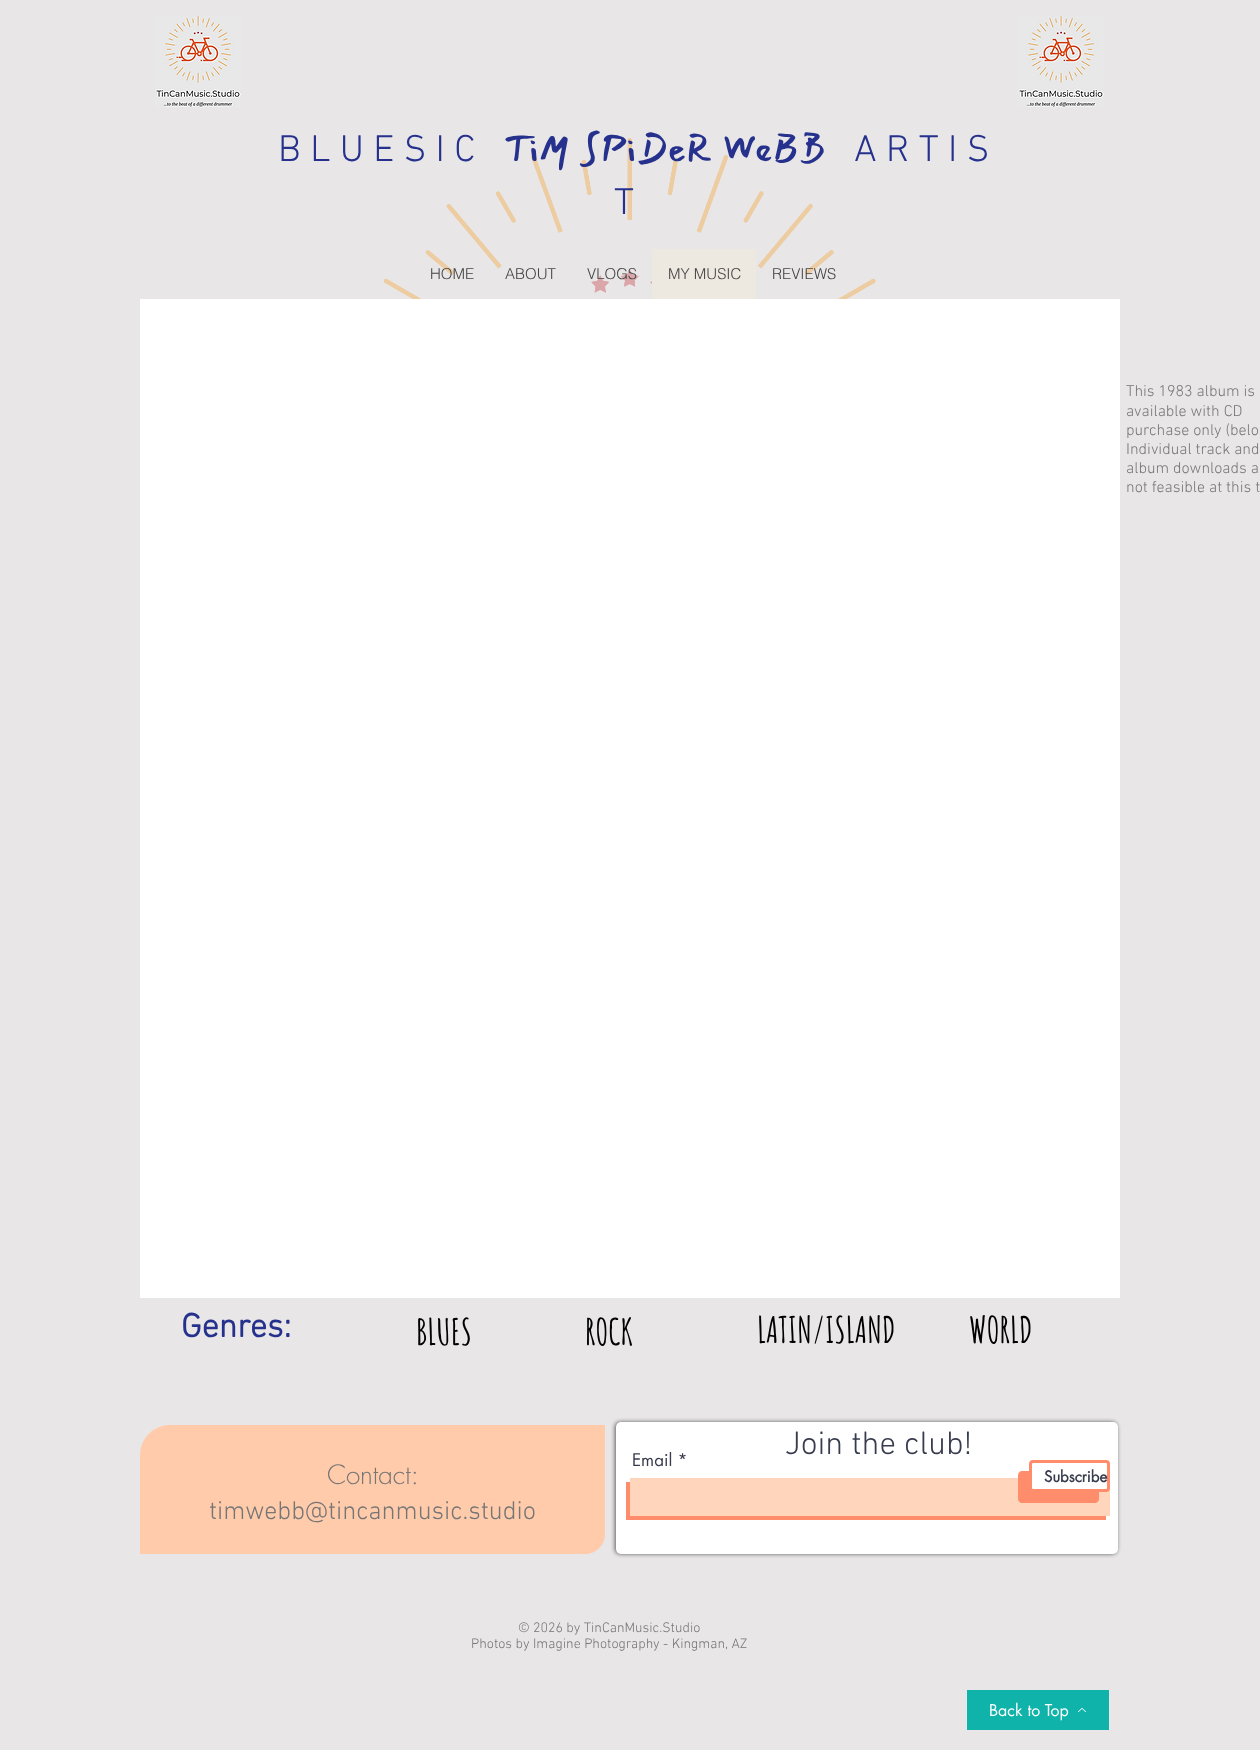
async function draw(canvas) {
  canvas.width = 1260;
  canvas.height = 1750;
  const ctx = canvas.getContext('2d');
  ctx.miterLimit = 4;
  ctx.fontKerning = 'normal';
  function label(s, x, y, font, color) {
    ctx.font = font;
    ctx.fillStyle = color;
    ctx.fillText(s, x, y);
  }
  function rect(x, y, w, h, color) {
    ctx.fillStyle = color;
    ctx.fillRect(x, y, w, h);
  }
  function roundedRect(x, y, w, h, r, color) {
    ctx.fillStyle = color;
    ctx.beginPath();
    ctx.roundRect(x, y, w, h, r);
    ctx.fill();
  }
  async function image(src, x, y, w, h) {
    const img = new Image();
    img.src = src;
    await img.decode();
    ctx.drawImage(img, x, y, w, h);
  }
  let path;

  rect(0, 0, 1260, 1750, '#e8e6e6');
  await image('assets/img1.png', 155, 16, 86, 92);
  await image('assets/img1.png', 1018, 16, 86, 92);
  await image('assets/img3.png', 275, 138, 706, 161);
  label('B L U E S I C', 278, 161, '300 38px "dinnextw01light"', '#25318d');
  label('TiM SPiDeR WeBB', 503, 161, '38px Mansalva', '#25318d');
  label('A R T I S', 854, 161, '300 38px "dinnextw01light"', '#25318d');
  label('T', 614, 214, '300 38px "dinnextw01light"', '#25318d');
  label('HOME', 430, 279, '300 15px helvetica', '#444');
  label('ABOUT', 505, 279, '300 15px helvetica', '#444');
  label('VLOGS', 587, 279, '300 15px helvetica', '#444');
  rect(652, 249, 104, 50, '#ede9e1');
  label('MY MUSIC', 668, 279, '300 15px helvetica', '#444');
  label('REVIEWS', 772, 279, '300 15px helvetica', '#444');
  label('Genres:', 181, 1337, 'bold 34px "dinnextw01light"', '#25318d');
  label('BLUES', 416, 1345, 'bold 36px Amatic SC', '#000');
  label('ROCK', 585, 1345, 'bold 36px Amatic SC', '#000');
  label('LATIN/ISLAND', 757, 1343, 'bold 36px Amatic SC', '#000');
  label('WORLD', 969, 1343, 'bold 36px Amatic SC', '#000');
  ctx.fillStyle = '#00000099';
  ctx.filter = 'blur(2px)';
  ctx.beginPath();
  ctx.roundRect(615, 1422, 502, 132, 5);
  ctx.fill();
  ctx.filter = 'none';
  roundedRect(616, 1422, 502, 132, 5, '#fff');
  label('Join the club!', 785, 1454, '300 33px "dinnextw01light"', '#373b4d');
  label('Email *', 632, 1466, '17px futura', '#373b4d');
  ctx.fillStyle = '#ff8c6b';
  path = new Path2D('M626 1482V1520H1106V1516H630V1482Z');
  ctx.fill(path);
  rect(630, 1478, 480, 38, '#ffd5bb');
  ctx.fillStyle = '#ff8c6b';
  path = new Path2D('M1022 1471C1020 1471 1018 1473 1018 1475V1499C1018 1501 1020 1503 1022 1503H1095C1097 1503 1099 1501 1099 1499V1492H1033C1031 1492 1029 1490 1029 1488V1471Z');
  ctx.fill(path);
  ctx.fillStyle = '#fff';
  ctx.beginPath();
  ctx.roundRect(1030.5, 1461.5, 78, 29, 2.5);
  ctx.fill();
  ctx.strokeStyle = '#ff8c6b';
  ctx.lineWidth = 3;
  ctx.stroke();
  label('Subscribe', 1044, 1482, 'bold 15px futura', '#373b4d');
  ctx.fillStyle = '#ffcbaa';
  ctx.beginPath();
  ctx.roundRect(140, 1425, 465, 129, [30, 0, 20, 0]);
  ctx.fill();
  label('Contact:', 327, 1484, '300 26px futura', '#767676');
  label('timwebb@tincanmusic.studio', 209, 1519, '300 26px "dinnextw01light"', '#767676');
  label('© 2026 by TinCanMusic.Studio', 518, 1632, '300 14px "dinnextw01light"', '#767676');
  label('Photos by Imagine Photography - Kingman, AZ', 471, 1648, '300 14px "dinnextw01light"', '#767676');
  rect(140, 299, 980, 999, '#fff');
  label('This 1983 album is', 1126, 396, '300 16px "dinnextw01light"', '#767676');
  label('available with CD', 1126, 416, '300 16px "dinnextw01light"', '#767676');
  label('purchase only (belo', 1126, 435, '300 16px "dinnextw01light"', '#767676');
  label('Individual track and', 1126, 454, '300 16px "dinnextw01light"', '#767676');
  label('album downloads a', 1126, 473, '300 16px "dinnextw01light"', '#767676');
  label('not feasible at this t', 1126, 492, '300 16px "dinnextw01light"', '#767676');
  rect(967, 1690, 142, 40, '#0fb3a9');
  label('Back to Top', 989, 1716, '16px futura', '#fff');
  await image('assets/img2.png', 1078, 1708, 8, 5);
}

draw(document.querySelector('canvas'));
